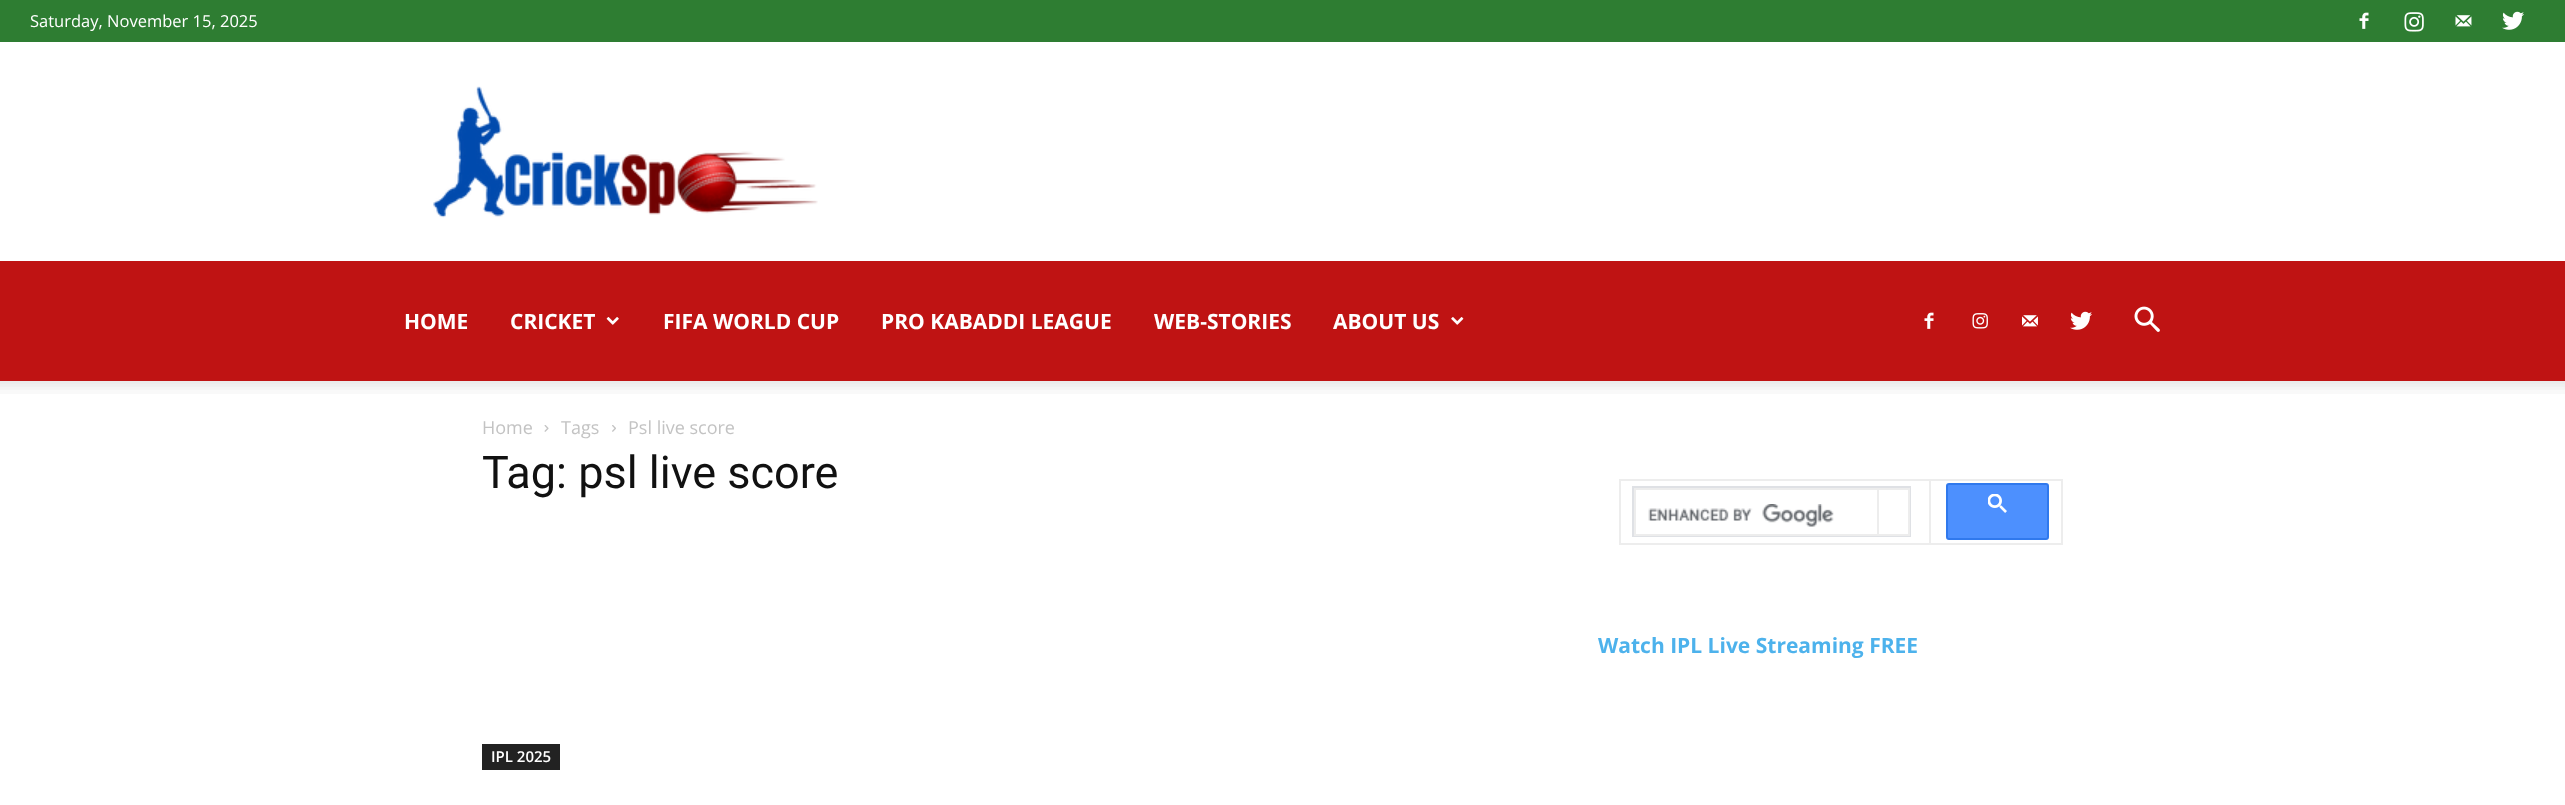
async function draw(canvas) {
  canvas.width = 2565;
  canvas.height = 805;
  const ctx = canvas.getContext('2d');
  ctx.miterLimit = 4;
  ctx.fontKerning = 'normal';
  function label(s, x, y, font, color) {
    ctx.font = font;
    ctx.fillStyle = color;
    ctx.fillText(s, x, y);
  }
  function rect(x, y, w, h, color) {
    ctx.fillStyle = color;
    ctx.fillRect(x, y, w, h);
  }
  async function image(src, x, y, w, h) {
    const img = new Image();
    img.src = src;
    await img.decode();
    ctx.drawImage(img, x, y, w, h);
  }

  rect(0, 0, 2565, 805, '#fff');
  rect(0, 0, 2565, 42, '#2e7d32');
  label('Saturday, November 15, 2025', 30, 27, '16.5px Open Sans', '#fff');
  await image('assets/img1.png', 2359, 12, 10, 17);
  await image('assets/img2.png', 2404, 12, 20, 20);
  await image('assets/img3.png', 2455, 15, 17, 12);
  await image('assets/img4.png', 2502, 11, 22, 19);
  await image('assets/img5.png', 433, 86, 385, 132);
  rect(0, 261, 2565, 120, '#bf1313');
  label('HOME', 404, 329, 'bold 21px Open Sans', '#fff');
  label('CRICKET', 510, 329, 'bold 21px Open Sans', '#fff');
  await image('assets/img6.png', 606, 317, 13, 8);
  label('FIFA WORLD CUP', 663, 329, 'bold 21px Open Sans', '#fff');
  label('PRO KABADDI LEAGUE', 881, 329, 'bold 21px Open Sans', '#fff');
  label('WEB-STORIES', 1154, 329, 'bold 21px Open Sans', '#fff');
  label('ABOUT US', 1333, 329, 'bold 21px Open Sans', '#fff');
  await image('assets/img7.png', 1451, 317, 13, 8);
  await image('assets/img8.png', 1924, 312, 10, 17);
  await image('assets/img9.png', 1972, 313, 16, 16);
  await image('assets/img10.png', 2022, 315, 16, 12);
  await image('assets/img11.png', 2070, 311, 22, 19);
  await image('assets/img12.png', 2134, 306, 26, 26);
  await image('assets/img13.png', 0, 381, 2565, 13);
  label('Home', 482, 434, '18px Open Sans', '#c3c3c3');
  await image('assets/img14.png', 544, 425, 5, 7);
  label('Tags', 561, 434, '18px Open Sans', '#c3c3c3');
  await image('assets/img15.png', 612, 425, 4, 7);
  label('Psl live score', 628, 434, '18px Open Sans', '#c3c3c3');
  label('Tag: psl live score', 482, 488, '45px Roboto', '#111');
  rect(482, 744, 78, 26, '#222');
  label('IPL 2025', 491, 762, '600 15px Open Sans', '#fff');
  rect(1929, 479, 134, 2, '#ededed');
  rect(2061, 479, 2, 66, '#ededed');
  rect(1929, 543, 134, 2, '#ededed');
  rect(1929, 479, 2, 66, '#ededed');
  rect(1619, 479, 312, 2, '#ededed');
  rect(1619, 543, 312, 2, '#ededed');
  rect(1619, 479, 2, 66, '#ededed');
  ctx.strokeStyle = '#dfe1e5';
  ctx.lineWidth = 2;
  ctx.strokeRect(1633, 487, 277, 49);
  rect(1877, 488, 33, 2, '#ededed');
  rect(1908, 488, 2, 48, '#ededed');
  rect(1877, 534, 33, 2, '#ededed');
  rect(1877, 488, 2, 48, '#ededed');
  rect(1634, 488, 244, 2, '#ededed');
  rect(1634, 534, 244, 2, '#ededed');
  rect(1634, 488, 2, 48, '#ededed');
  await image('assets/img16.png', 1648, 504, 186, 23);
  ctx.fillStyle = '#4d90fe';
  ctx.beginPath();
  ctx.roundRect(1947, 484, 101, 55, 2);
  ctx.fill();
  ctx.strokeStyle = '#3079ed';
  ctx.stroke();
  await image('assets/img17.png', 1988, 494, 19, 19);
  label('Watch IPL Live Streaming FREE', 1598, 653, 'bold 21px Open Sans', '#4db2ec');
}

draw(document.querySelector('canvas'));
